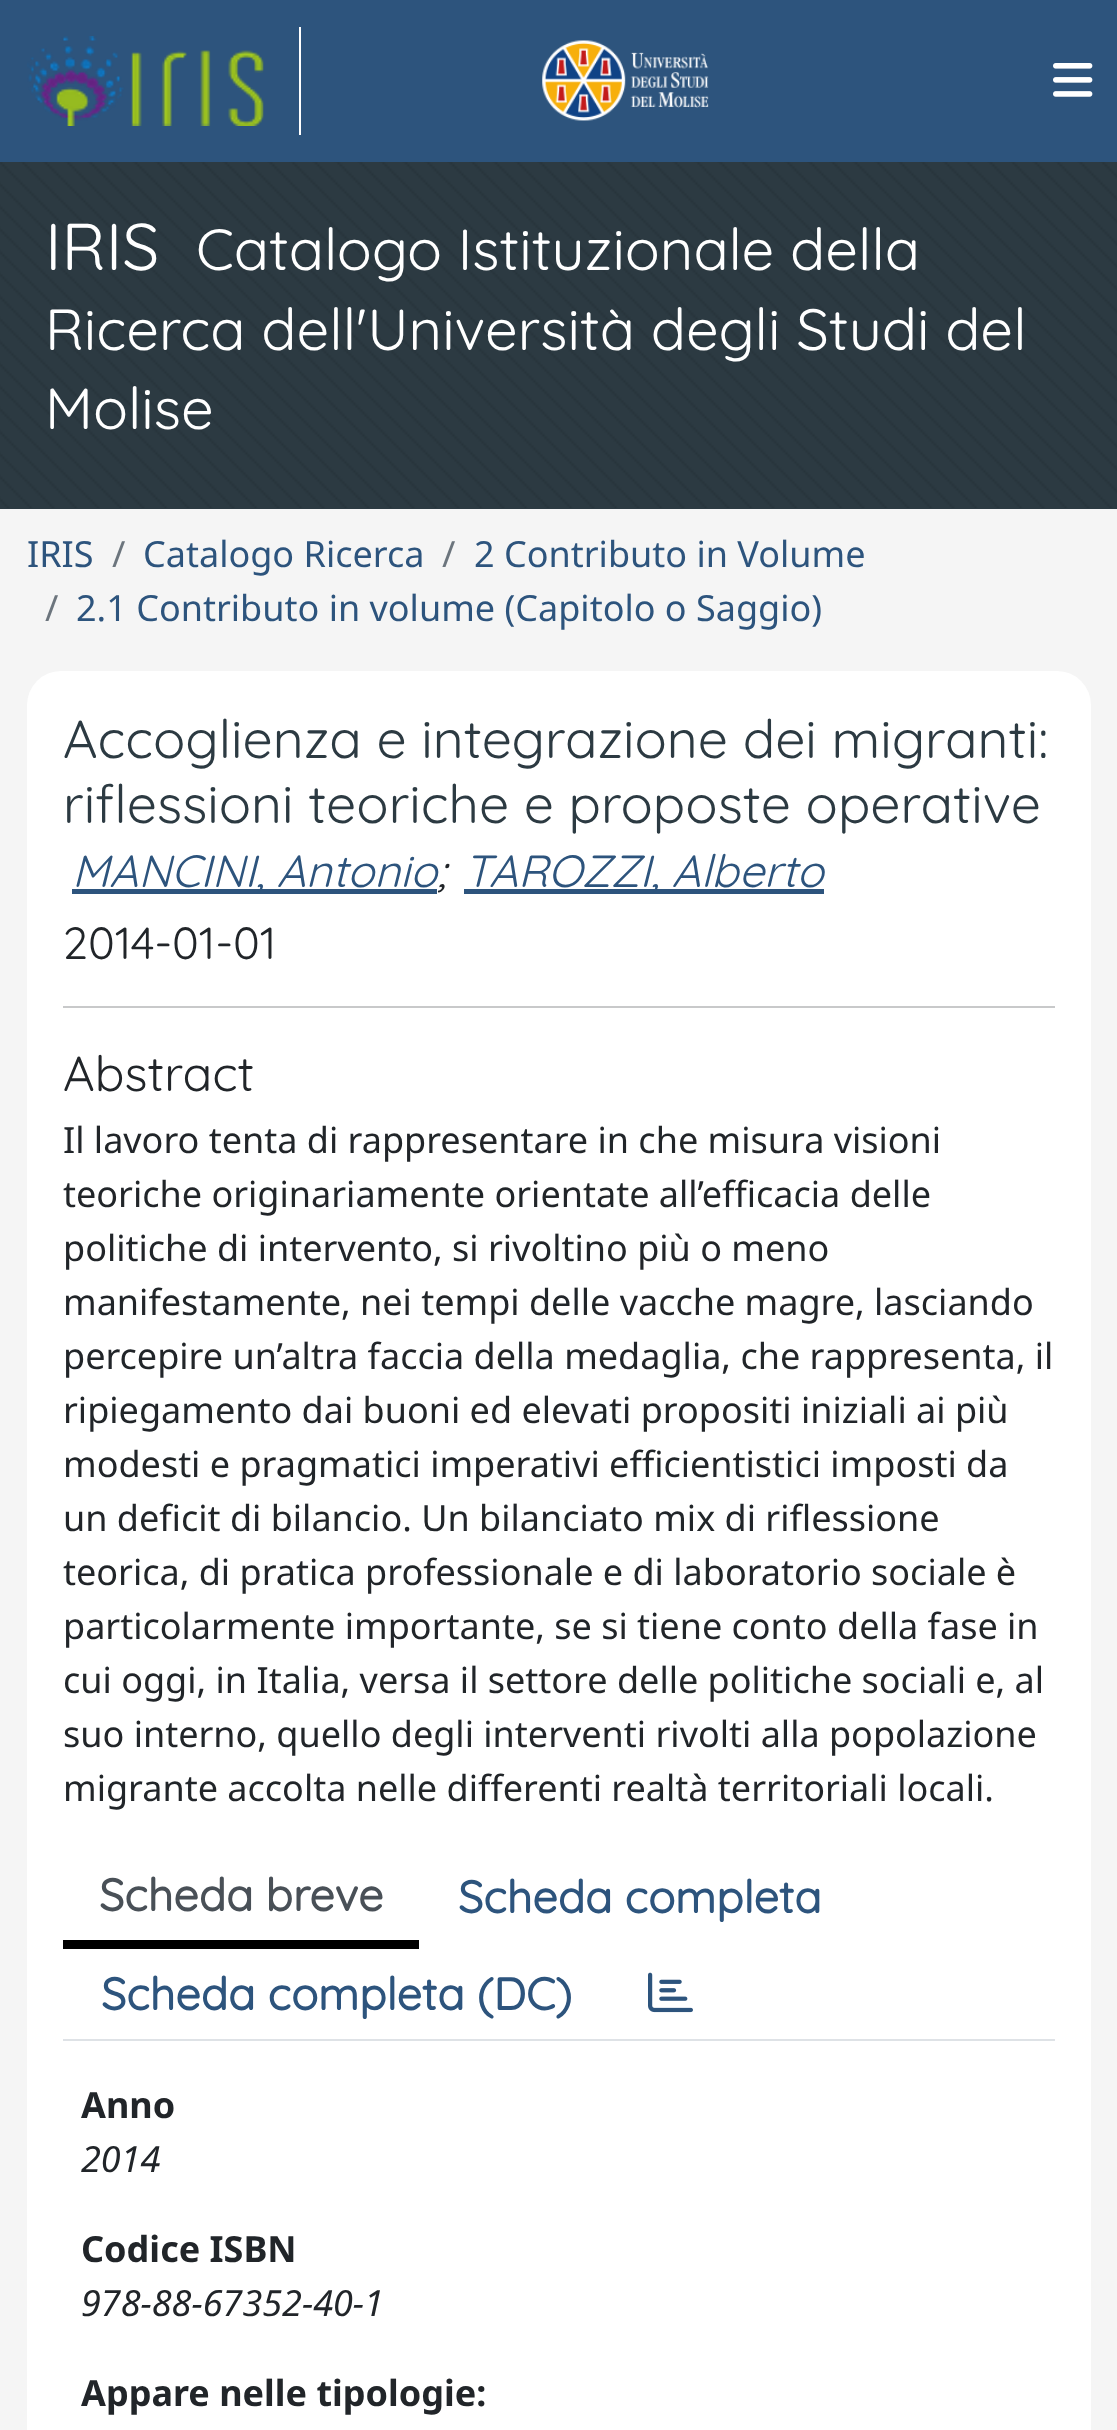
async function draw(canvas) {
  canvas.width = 1117;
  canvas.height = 2430;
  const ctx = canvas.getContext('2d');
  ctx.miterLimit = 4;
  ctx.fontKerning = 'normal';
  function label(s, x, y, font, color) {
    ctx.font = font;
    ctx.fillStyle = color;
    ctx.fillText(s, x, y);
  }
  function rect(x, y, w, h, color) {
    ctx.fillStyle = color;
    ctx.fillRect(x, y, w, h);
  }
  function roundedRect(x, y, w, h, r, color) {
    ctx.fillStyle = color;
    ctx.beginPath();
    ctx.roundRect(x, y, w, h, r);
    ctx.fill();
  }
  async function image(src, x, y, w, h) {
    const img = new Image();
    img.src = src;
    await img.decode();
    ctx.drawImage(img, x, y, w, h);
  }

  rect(0, 0, 1117, 2430, '#f5f5f5');
  rect(0, 0, 1117, 162, '#2d547d');
  rect(299, 27, 2, 108, '#fff');
  await image('assets/img1.png', 27, 36, 237, 90);
  await image('assets/img2.png', 542, 40, 167, 81);
  await image('assets/img3.png', 1053, 63, 40, 34);
  rect(0, 162, 1117, 347, '#2c3a42');
  await image('assets/img4.png', 0, 162, 1117, 346);
  label('IRIS', 45, 270, '66px Quicksand', '#fff');
  label('Catalogo Istituzionale della', 196, 270, '58px Quicksand', '#fff');
  label('Ricerca dell\'Università degli Studi del', 45, 350, '58px Quicksand', '#fff');
  label('Molise', 45, 429, '58px Quicksand', '#fff');
  label('IRIS', 27, 567, '36px Noto Sans', '#2d547d');
  label('/', 112, 567, '36px Noto Sans', '#6c757d');
  label('Catalogo Ricerca', 143, 567, '36px Noto Sans', '#2d547d');
  label('/', 442, 567, '36px Noto Sans', '#6c757d');
  label('2 Contributo in Volume', 474, 567, '36px Noto Sans', '#2d547d');
  label('/', 45, 621, '36px Noto Sans', '#6c757d');
  label('2.1 Contributo in volume (Capitolo o Saggio)', 76, 621, '36px Noto Sans', '#2d547d');
  roundedRect(27, 671, 1064, 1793, 34, '#fff');
  label('Accoglienza e integrazione dei migranti:', 63, 758, '53.5px Quicksand', '#2c3a42');
  label('riflessioni teoriche e proposte operative', 63, 823, '53.5px Quicksand', '#2c3a42');
  rect(72, 889, 365, 5, '#2d547d');
  label('MANCINI, Antonio', 72, 887, 'italic 45px Quicksand', '#2d547d');
  label(';', 437, 887, 'italic 45px Quicksand', '#212529');
  rect(464, 889, 360, 5, '#2d547d');
  label('TAROZZI, Alberto', 464, 887, 'italic 45px Quicksand', '#2d547d');
  label('2014-01-01', 63, 959, '45px Quicksand', '#212529');
  rect(63, 1006, 992, 2, '#c8c9ca');
  label('Abstract', 63, 1091, '49px Quicksand', '#212529');
  label('Il lavoro tenta di rappresentare in che misura visioni', 63, 1153, '36px Noto Sans', '#212529');
  label('teoriche originariamente orientate all’efficacia delle', 63, 1207, '36px Noto Sans', '#212529');
  label('politiche di intervento, si rivoltino più o meno', 63, 1261, '36px Noto Sans', '#212529');
  label('manifestamente, nei tempi delle vacche magre, lasciando', 63, 1315, '36px Noto Sans', '#212529');
  label('percepire un’altra faccia della medaglia, che rappresenta, il', 63, 1369, '36px Noto Sans', '#212529');
  label('ripiegamento dai buoni ed elevati propositi iniziali ai più', 63, 1423, '36px Noto Sans', '#212529');
  label('modesti e pragmatici imperativi efficientistici imposti da', 63, 1477, '36px Noto Sans', '#212529');
  label('un deficit di bilancio. Un bilanciato mix di riflessione', 63, 1531, '36px Noto Sans', '#212529');
  label('teorica, di pratica professionale e di laboratorio sociale è', 63, 1585, '36px Noto Sans', '#212529');
  label('particolarmente importante, se si tiene conto della fase in', 63, 1639, '36px Noto Sans', '#212529');
  label('cui oggi, in Italia, versa il settore delle politiche sociali e, al', 63, 1693, '36px Noto Sans', '#212529');
  label('suo interno, quello degli interventi rivolti alla popolazione', 63, 1747, '36px Noto Sans', '#212529');
  label('migrante accolta nelle differenti realtà territoriali locali.', 63, 1801, '36px Noto Sans', '#212529');
  rect(63, 2039, 992, 2, '#dee2e6');
  rect(63, 1940, 356, 9, '#000');
  label('Scheda breve', 99, 1911, 'bold 45px Quicksand', '#495057');
  label('Scheda completa', 458, 1913, 'bold 45px Quicksand', '#2d547d');
  label('Scheda completa (DC)', 101, 2010, 'bold 45px Quicksand', '#2d547d');
  await image('assets/img5.png', 648, 1972, 45, 41);
  label('Anno', 81, 2118, 'bold 36px Noto Sans', '#212529');
  label('2014', 81, 2172, 'italic 36px Noto Sans', '#212529');
  label('Codice ISBN', 81, 2262, 'bold 36px Noto Sans', '#212529');
  label('978-88-67352-40-1', 81, 2316, 'italic 36px Noto Sans', '#212529');
  label('Appare nelle tipologie:', 81, 2406, 'bold 36px Noto Sans', '#212529');
}

draw(document.querySelector('canvas'));
